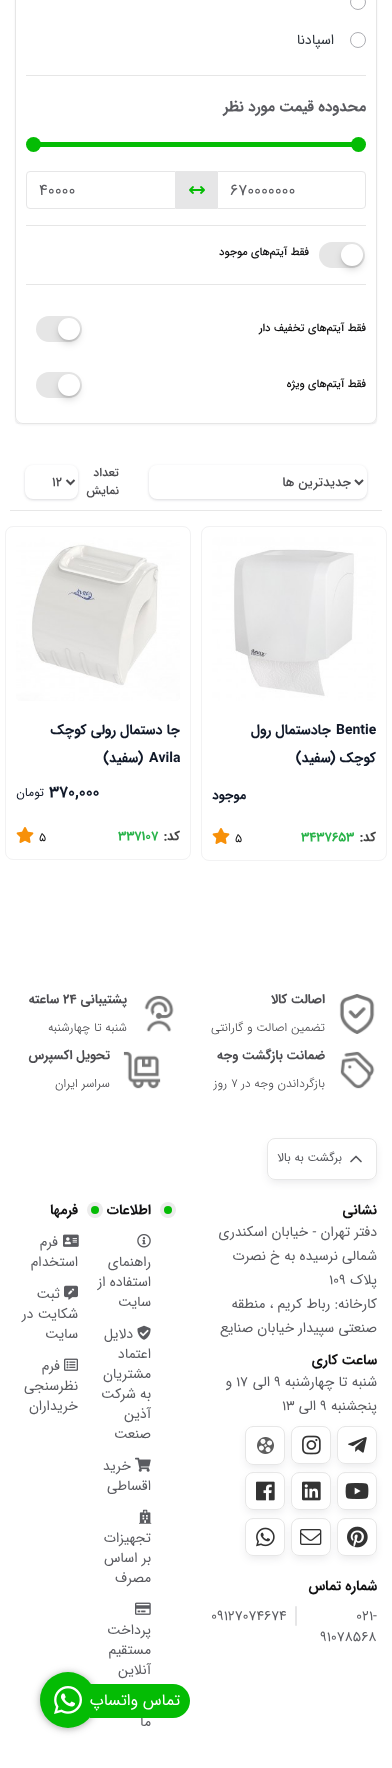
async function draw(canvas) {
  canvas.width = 392;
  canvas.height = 1768;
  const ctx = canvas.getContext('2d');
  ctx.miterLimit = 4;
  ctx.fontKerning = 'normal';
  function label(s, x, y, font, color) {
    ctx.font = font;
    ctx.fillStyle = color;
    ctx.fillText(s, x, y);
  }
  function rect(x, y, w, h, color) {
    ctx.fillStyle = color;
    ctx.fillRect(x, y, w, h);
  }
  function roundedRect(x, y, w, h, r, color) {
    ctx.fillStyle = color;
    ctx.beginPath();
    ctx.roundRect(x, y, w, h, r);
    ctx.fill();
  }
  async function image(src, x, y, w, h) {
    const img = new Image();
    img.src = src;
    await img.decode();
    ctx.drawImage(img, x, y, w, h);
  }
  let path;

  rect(0, 0, 392, 1768, '#fff');
  ctx.save();
  ctx.beginPath();
  ctx.rect(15, 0, 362, 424);
  ctx.clip();
  path = new Path2D('M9 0H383V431H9ZM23-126H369C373.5-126 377-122.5 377-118V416C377 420.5 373.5 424 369 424H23C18.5 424 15 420.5 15 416V-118C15-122.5 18.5-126 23-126Z');
  ctx.clip(path, 'evenodd');
  ctx.fillStyle = '#1018281a';
  ctx.filter = 'blur(1.5px)';
  ctx.beginPath();
  ctx.roundRect(15, -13, 362, 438, 8);
  ctx.fill();
  ctx.filter = 'none';
  ctx.restore();
  ctx.save();
  path = new Path2D('M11 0H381V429H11ZM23-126H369C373.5-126 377-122.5 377-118V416C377 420.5 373.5 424 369 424H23C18.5 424 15 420.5 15 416V-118C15-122.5 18.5-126 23-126Z');
  ctx.clip(path, 'evenodd');
  ctx.fillStyle = '#1018280f';
  ctx.filter = 'blur(1px)';
  ctx.beginPath();
  ctx.roundRect(15, -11, 362, 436, 8);
  ctx.fill();
  ctx.filter = 'none';
  ctx.restore();
  ctx.fillStyle = '#e6e6e6';
  path = new Path2D('M377 416V-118L376-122L375-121L376-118V416C376 418 375 420 374 421V422C376 420 377 418 377 416Z');
  ctx.fill(path);
  path = new Path2D('M23 424H369C371 424 373 423 374 422V421C373 422 371 423 369 423H23C21 423 19 422 18 421V422C19 423 21 424 23 424Z');
  ctx.fill(path);
  path = new Path2D('M15-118V416C15 418 16 420 18 422V421C17 420 16 418 16 416V-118L17-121L16-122Z');
  ctx.fill(path);
  ctx.beginPath();
  ctx.arc(358, 2, 7.5, 0, 2 * Math.PI);
  ctx.strokeStyle = '#adaeb3';
  ctx.stroke();
  ctx.beginPath();
  ctx.arc(358, 40, 7.5, 0, 2 * Math.PI);
  ctx.stroke();
  ctx.direction = 'rtl';
  label('اسپادنا', 334, 44, '14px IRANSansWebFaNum', '#2e343b');
  rect(26, 75, 340, 1, '#e6e6e6');
  label('محدوده قیمت مورد نظر', 366, 111, 'bold 15px IRANSansWebFaNum', '#5a5b60');
  rect(36, 142, 316, 5, '#04bc04');
  ctx.beginPath();
  ctx.arc(358.5, 144.5, 7.5, 0, 2 * Math.PI);
  ctx.fill();
  ctx.beginPath();
  ctx.arc(33.5, 144.5, 7.5, 0, 2 * Math.PI);
  ctx.fill();
  ctx.beginPath();
  ctx.roundRect(217.5, 171.5, 148, 37, [0, 3.5, 3.5, 0]);
  ctx.strokeStyle = '#e6e6e7';
  ctx.stroke();
  ctx.direction = 'ltr';
  label('670000000', 230, 195, '16px IRANSansWebFaNum', '#5a5b60');
  rect(176, 171, 41, 38, '#e6e6e7');
  await image('assets/img1.png', 189, 186, 16, 8);
  ctx.beginPath();
  ctx.roundRect(26.5, 171.5, 149, 37, [3.5, 0, 0, 3.5]);
  ctx.stroke();
  label('40000', 39, 195, '16px IRANSansWebFaNum', '#5a5b60');
  rect(26, 225, 340, 1, '#e6e6e6');
  roundedRect(319, 242, 46, 26, 13, '#e6e6e6');
  ctx.fillStyle = '#0000000d';
  ctx.filter = 'blur(1px)';
  ctx.beginPath();
  ctx.roundRect(341, 246, 22, 22, 11);
  ctx.fill();
  ctx.filter = 'none';
  ctx.fillStyle = '#00000021';
  ctx.filter = 'blur(3.5px)';
  ctx.beginPath();
  ctx.roundRect(341, 248, 22, 22, 11);
  ctx.fill();
  ctx.filter = 'none';
  ctx.fillStyle = '#0000000a';
  path = new Path2D('M341 256C340 267 355 272.5 361 263C362.5 261 363 258.5 363 256C362 269 342 269 341 256Z');
  ctx.fill(path);
  ctx.fillStyle = '#fff';
  ctx.beginPath();
  ctx.arc(352, 255, 11, 0, 2 * Math.PI);
  ctx.fill();
  ctx.direction = 'rtl';
  label('فقط آیتم‌های موجود', 309, 255, '500 11px IRANSansWebFaNum', '#111112');
  rect(26, 284, 340, 1, '#e6e6e6');
  label('فقط آیتم‌های تخفیف دار', 366, 331, '500 11px IRANSansWebFaNum', '#111112');
  roundedRect(36, 316, 46, 26, 13, '#e6e6e6');
  ctx.fillStyle = '#0000000d';
  ctx.filter = 'blur(1px)';
  ctx.beginPath();
  ctx.roundRect(58, 320, 22, 22, 11);
  ctx.fill();
  ctx.filter = 'none';
  ctx.fillStyle = '#00000021';
  ctx.filter = 'blur(3.5px)';
  ctx.beginPath();
  ctx.roundRect(58, 322, 22, 22, 11);
  ctx.fill();
  ctx.filter = 'none';
  ctx.fillStyle = '#0000000a';
  path = new Path2D('M58 330C58 332.5 58.5 335 60 337C66 346.5 81 341 80 330C79 343 59 343 58 330Z');
  ctx.fill(path);
  ctx.fillStyle = '#fff';
  ctx.beginPath();
  ctx.arc(69, 329, 11, 0, 2 * Math.PI);
  ctx.fill();
  label('فقط آیتم‌های ویژه', 366, 387, '500 11px IRANSansWebFaNum', '#111112');
  roundedRect(36, 372, 46, 26, 13, '#e6e6e6');
  ctx.fillStyle = '#0000000d';
  ctx.filter = 'blur(1px)';
  ctx.beginPath();
  ctx.roundRect(58, 376, 22, 22, 11);
  ctx.fill();
  ctx.filter = 'none';
  ctx.fillStyle = '#00000021';
  ctx.filter = 'blur(3.5px)';
  ctx.beginPath();
  ctx.roundRect(58, 378, 22, 22, 11);
  ctx.fill();
  ctx.filter = 'none';
  ctx.fillStyle = '#0000000a';
  path = new Path2D('M58 386C58 388.5 58.5 391 60 393C66 402.5 81 397 80 386C79 399 59 399 58 386Z');
  ctx.fill(path);
  ctx.fillStyle = '#fff';
  ctx.beginPath();
  ctx.arc(69, 385, 11, 0, 2 * Math.PI);
  ctx.fill();
  rect(10, 510, 372, 1, '#e7e7e7');
  ctx.fillStyle = '#1018281a';
  ctx.filter = 'blur(1.5px)';
  ctx.beginPath();
  ctx.roundRect(149, 466, 218, 34, 8);
  ctx.fill();
  ctx.filter = 'none';
  ctx.fillStyle = '#1018280f';
  ctx.filter = 'blur(1px)';
  ctx.beginPath();
  ctx.roundRect(149, 466, 218, 34, 8);
  ctx.fill();
  ctx.filter = 'none';
  roundedRect(149, 465, 218, 34, 8, '#fff');
  path = new Path2D('M355 480L359 484L363 480');
  ctx.strokeStyle = '#4d4d51';
  ctx.lineWidth = 2;
  ctx.stroke(path);
  label('جدیدترین ها', 351, 486, '500 13px IRANSansWebFaNum', '#4d4d51');
  label('تعداد', 119, 476, '500 12px IRANSansWebFaNum', '#4d4d51');
  ctx.fillStyle = '#1018281a';
  ctx.filter = 'blur(1.5px)';
  ctx.beginPath();
  ctx.roundRect(25, 466, 53, 34, 8);
  ctx.fill();
  ctx.filter = 'none';
  ctx.fillStyle = '#1018280f';
  ctx.filter = 'blur(1px)';
  ctx.beginPath();
  ctx.roundRect(25, 466, 53, 34, 8);
  ctx.fill();
  ctx.filter = 'none';
  roundedRect(25, 465, 53, 34, 8, '#fff');
  path = new Path2D('M66.5 480L70.5 484L74.5 480');
  ctx.stroke(path);
  ctx.direction = 'ltr';
  label('12', 52, 486, '500 13px IRANSansWebFaNum', '#4d4d51');
  ctx.direction = 'rtl';
  label('نمایش', 119, 494, '500 12px IRANSansWebFaNum', '#4d4d51');
  ctx.beginPath();
  ctx.roundRect(201.5, 526.5, 185, 334, 7.5);
  ctx.strokeStyle = '#f2f2f3';
  ctx.lineWidth = 1;
  ctx.stroke();
  await image('assets/img2.png', 212, 537, 164, 164);
  ctx.direction = 'ltr';
  label('Bentie', 336, 734, 'bold 14px IRANSansWebFaNum', '#101828');
  ctx.direction = 'rtl';
  label('جادستمال رول', 331, 734, 'bold 14px IRANSansWebFaNum', '#101828');
  ctx.save();
  ctx.beginPath();
  ctx.rect(212, 716, 164, 50);
  ctx.clip();
  label('کوچک (سفید)', 376, 762, 'bold 14px IRANSansWebFaNum', '#101828');
  ctx.restore();
  label('موجود', 246, 799, 'bold 13px IRANSansWebFaNum', '#101828');
  label('کد:', 376, 841, 'bold 13px IRANSansWebFaNum', '#444');
  ctx.direction = 'ltr';
  label('3437653', 301, 841, 'bold 13px IRANSansWebFaNum', '#29b34a');
  label('5', 235, 842, '12px IRANSansWebFaNum', '#111112');
  await image('assets/img3.png', 212, 828, 18, 16);
  ctx.beginPath();
  ctx.roundRect(5.5, 526.5, 185, 333, 7.5);
  ctx.stroke();
  await image('assets/img4.png', 16, 537, 164, 164);
  ctx.direction = 'rtl';
  label('جا دستمال رولی کوچک', 180, 734, 'bold 14px IRANSansWebFaNum', '#101828');
  ctx.direction = 'ltr';
  label('Avila', 149, 762, 'bold 14px IRANSansWebFaNum', '#101828');
  ctx.direction = 'rtl';
  label('(سفید)', 143, 762, 'bold 14px IRANSansWebFaNum', '#101828');
  ctx.direction = 'ltr';
  label('370,000', 49, 797, 'bold 16px IRANSansWebFaNum', '#101828');
  ctx.direction = 'rtl';
  label('تومان', 44, 796, '12px IRANSansWebFaNum', '#101828');
  label('کد:', 180, 840, 'bold 13px IRANSansWebFaNum', '#444');
  ctx.direction = 'ltr';
  label('337107', 118, 840, 'bold 13px IRANSansWebFaNum', '#29b34a');
  label('5', 39, 841, '12px IRANSansWebFaNum', '#111112');
  await image('assets/img3.png', 16, 827, 18, 16);
  await image('assets/img5.png', 339, 994, 36, 40);
  ctx.direction = 'rtl';
  label('اصالت کالا', 325, 1003, 'bold 13px IRANSansWebFaNum', '#4d4d51');
  label('تضمین اصالت و گارانتی', 325, 1031, '300 12px IRANSansWebFaNum', '#4d4d51');
  await image('assets/img6.png', 144, 995, 30, 37);
  label('پشتیبانی', 127, 1003, 'bold 13px IRANSansWebFaNum', '#4d4d51');
  ctx.direction = 'ltr';
  label('24', 63, 1003, 'bold 13px IRANSansWebFaNum', '#4d4d51');
  ctx.direction = 'rtl';
  label('ساعته', 59, 1003, 'bold 13px IRANSansWebFaNum', '#4d4d51');
  label('شنبه تا چهارشنبه', 127, 1031, '300 12px IRANSansWebFaNum', '#4d4d51');
  await image('assets/img7.png', 340, 1051, 35, 38);
  label('ضمانت بازگشت وجه', 325, 1059, 'bold 13px IRANSansWebFaNum', '#4d4d51');
  label('بازگرداندن وجه در', 325, 1087, '300 12px IRANSansWebFaNum', '#4d4d51');
  ctx.direction = 'ltr';
  label('۷', 231, 1087, '300 12px IRANSansWebFaNum', '#4d4d51');
  ctx.direction = 'rtl';
  label('روز', 227, 1087, '300 12px IRANSansWebFaNum', '#4d4d51');
  await image('assets/img8.png', 123, 1051, 38, 38);
  label('تحویل اکسپرس', 110, 1059, 'bold 13px IRANSansWebFaNum', '#4d4d51');
  label('سراسر ایران', 110, 1087, '300 12px IRANSansWebFaNum', '#4d4d51');
  ctx.save();
  path = new Path2D('M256 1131H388V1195H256ZM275 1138H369C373.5 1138 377 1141.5 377 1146V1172C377 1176.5 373.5 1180 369 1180H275C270.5 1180 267 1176.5 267 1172V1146C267 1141.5 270.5 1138 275 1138Z');
  ctx.clip(path, 'evenodd');
  ctx.fillStyle = '#1018281a';
  ctx.filter = 'blur(4px)';
  ctx.beginPath();
  ctx.roundRect(269, 1144, 106, 38, 6);
  ctx.fill();
  ctx.filter = 'none';
  ctx.restore();
  ctx.beginPath();
  ctx.roundRect(267.5, 1138.5, 109, 41, 7.5);
  ctx.strokeStyle = '#e7e7e7';
  ctx.stroke();
  path = new Path2D('M361 1161.5L356 1156.5L351 1161.5');
  ctx.strokeStyle = '#5a5b60';
  ctx.lineWidth = 1.7;
  ctx.lineCap = 'round';
  ctx.lineJoin = 'round';
  ctx.stroke(path);
  label('برگشت به بالا', 342, 1161, '12px IRANSansWebFaNum', '#5a5b60');
  label('نشانی', 377, 1214, 'bold 14px IRANSansWebFaNum', '#111112');
  label('دفتر تهران - خیابان اسکندری', 377, 1236, '14px IRANSansWebFaNum', '#5a5b60');
  label('شمالی نرسیده به خ نصرت', 377, 1260, '14px IRANSansWebFaNum', '#5a5b60');
  label('پلاک', 377, 1284, '14px IRANSansWebFaNum', '#5a5b60');
  ctx.direction = 'ltr';
  label('109', 329, 1284, '14px IRANSansWebFaNum', '#5a5b60');
  ctx.direction = 'rtl';
  label('کارخانه: رباط کریم ، منطقه', 377, 1308, '14px IRANSansWebFaNum', '#5a5b60');
  label('صنعتی سپیدار خیابان صنایع', 377, 1332, '14px IRANSansWebFaNum', '#5a5b60');
  label('ساعت کاری', 377, 1364, 'bold 14px IRANSansWebFaNum', '#111112');
  label('شنبه تا چهارشنبه', 377, 1386, '14px IRANSansWebFaNum', '#5a5b60');
  ctx.direction = 'ltr';
  label('9', 274, 1386, '14px IRANSansWebFaNum', '#5a5b60');
  ctx.direction = 'rtl';
  label('الی', 270, 1386, '14px IRANSansWebFaNum', '#5a5b60');
  ctx.direction = 'ltr';
  label('17', 236, 1386, '14px IRANSansWebFaNum', '#5a5b60');
  ctx.direction = 'rtl';
  label('و', 232, 1386, '14px IRANSansWebFaNum', '#5a5b60');
  label('پنجشنبه', 377, 1410, '14px IRANSansWebFaNum', '#5a5b60');
  ctx.direction = 'ltr';
  label('9', 320, 1410, '14px IRANSansWebFaNum', '#5a5b60');
  ctx.direction = 'rtl';
  label('الی', 316, 1410, '14px IRANSansWebFaNum', '#5a5b60');
  ctx.direction = 'ltr';
  label('13', 282, 1410, '14px IRANSansWebFaNum', '#5a5b60');
  ctx.save();
  path = new Path2D('M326 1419H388V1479H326ZM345 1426H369C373.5 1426 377 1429.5 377 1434V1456C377 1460.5 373.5 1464 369 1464H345C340.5 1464 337 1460.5 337 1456V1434C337 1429.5 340.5 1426 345 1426Z');
  ctx.clip(path, 'evenodd');
  ctx.fillStyle = '#1018281a';
  ctx.filter = 'blur(4px)';
  ctx.beginPath();
  ctx.roundRect(339, 1432, 36, 34, 6);
  ctx.fill();
  ctx.filter = 'none';
  ctx.restore();
  ctx.beginPath();
  ctx.roundRect(337.5, 1426.5, 39, 37, 7.5);
  ctx.strokeStyle = '#e7e7e7';
  ctx.lineWidth = 1;
  ctx.lineJoin = 'miter';
  ctx.stroke();
  await image('assets/img9.png', 348, 1437, 19, 16);
  ctx.save();
  path = new Path2D('M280 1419H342V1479H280ZM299 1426H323C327.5 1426 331 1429.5 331 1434V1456C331 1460.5 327.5 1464 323 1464H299C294.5 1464 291 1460.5 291 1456V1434C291 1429.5 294.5 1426 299 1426Z');
  ctx.clip(path, 'evenodd');
  ctx.fillStyle = '#1018281a';
  ctx.filter = 'blur(4px)';
  ctx.beginPath();
  ctx.roundRect(293, 1432, 36, 34, 6);
  ctx.fill();
  ctx.filter = 'none';
  ctx.restore();
  ctx.beginPath();
  ctx.roundRect(291.5, 1426.5, 39, 37, 7.5);
  ctx.stroke();
  await image('assets/img10.png', 302, 1435, 19, 20);
  ctx.save();
  path = new Path2D('M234 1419H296V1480H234ZM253 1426H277C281.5 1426 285 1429.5 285 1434V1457C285 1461.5 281.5 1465 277 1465H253C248.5 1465 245 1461.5 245 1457V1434C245 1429.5 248.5 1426 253 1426Z');
  ctx.clip(path, 'evenodd');
  ctx.fillStyle = '#1018281a';
  ctx.filter = 'blur(4px)';
  ctx.beginPath();
  ctx.roundRect(247, 1432, 36, 35, 6);
  ctx.fill();
  ctx.filter = 'none';
  ctx.restore();
  ctx.beginPath();
  ctx.roundRect(245.5, 1426.5, 39, 38, 7.5);
  ctx.stroke();
  await image('assets/img11.png', 257, 1437, 17, 17);
  ctx.save();
  path = new Path2D('M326 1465H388V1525H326ZM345 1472H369C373.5 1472 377 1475.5 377 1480V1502C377 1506.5 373.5 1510 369 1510H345C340.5 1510 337 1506.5 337 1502V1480C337 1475.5 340.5 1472 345 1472Z');
  ctx.clip(path, 'evenodd');
  ctx.fillStyle = '#1018281a';
  ctx.filter = 'blur(4px)';
  ctx.beginPath();
  ctx.roundRect(339, 1478, 36, 34, 6);
  ctx.fill();
  ctx.filter = 'none';
  ctx.restore();
  ctx.beginPath();
  ctx.roundRect(337.5, 1472.5, 39, 37, 7.5);
  ctx.stroke();
  await image('assets/img12.png', 345, 1483, 24, 16);
  ctx.save();
  path = new Path2D('M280 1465H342V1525H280ZM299 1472H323C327.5 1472 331 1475.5 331 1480V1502C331 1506.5 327.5 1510 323 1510H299C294.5 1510 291 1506.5 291 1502V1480C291 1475.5 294.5 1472 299 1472Z');
  ctx.clip(path, 'evenodd');
  ctx.fillStyle = '#1018281a';
  ctx.filter = 'blur(4px)';
  ctx.beginPath();
  ctx.roundRect(293, 1478, 36, 34, 6);
  ctx.fill();
  ctx.filter = 'none';
  ctx.restore();
  ctx.beginPath();
  ctx.roundRect(291.5, 1472.5, 39, 37, 7.5);
  ctx.stroke();
  await image('assets/img13.png', 302, 1481, 19, 20);
  ctx.save();
  path = new Path2D('M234 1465H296V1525H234ZM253 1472H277C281.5 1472 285 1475.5 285 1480V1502C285 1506.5 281.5 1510 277 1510H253C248.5 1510 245 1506.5 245 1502V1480C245 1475.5 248.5 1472 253 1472Z');
  ctx.clip(path, 'evenodd');
  ctx.fillStyle = '#1018281a';
  ctx.filter = 'blur(4px)';
  ctx.beginPath();
  ctx.roundRect(247, 1478, 36, 34, 6);
  ctx.fill();
  ctx.filter = 'none';
  ctx.restore();
  ctx.beginPath();
  ctx.roundRect(245.5, 1472.5, 39, 37, 7.5);
  ctx.stroke();
  await image('assets/img14.png', 256, 1481, 19, 20);
  ctx.save();
  path = new Path2D('M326 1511H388V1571H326ZM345 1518H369C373.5 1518 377 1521.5 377 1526V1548C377 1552.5 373.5 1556 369 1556H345C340.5 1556 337 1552.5 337 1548V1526C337 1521.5 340.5 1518 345 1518Z');
  ctx.clip(path, 'evenodd');
  ctx.fillStyle = '#1018281a';
  ctx.filter = 'blur(4px)';
  ctx.beginPath();
  ctx.roundRect(339, 1524, 36, 34, 6);
  ctx.fill();
  ctx.filter = 'none';
  ctx.restore();
  ctx.beginPath();
  ctx.roundRect(337.5, 1518.5, 39, 37, 7.5);
  ctx.stroke();
  await image('assets/img15.png', 347, 1526, 21, 22);
  ctx.save();
  path = new Path2D('M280 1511H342V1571H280ZM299 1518H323C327.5 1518 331 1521.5 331 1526V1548C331 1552.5 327.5 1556 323 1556H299C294.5 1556 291 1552.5 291 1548V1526C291 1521.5 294.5 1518 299 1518Z');
  ctx.clip(path, 'evenodd');
  ctx.fillStyle = '#1018281a';
  ctx.filter = 'blur(4px)';
  ctx.beginPath();
  ctx.roundRect(293, 1524, 36, 34, 6);
  ctx.fill();
  ctx.filter = 'none';
  ctx.restore();
  ctx.beginPath();
  ctx.roundRect(291.5, 1518.5, 39, 37, 7.5);
  ctx.stroke();
  await image('assets/img16.png', 300, 1529, 22, 16);
  ctx.save();
  path = new Path2D('M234 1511H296V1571H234ZM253 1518H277C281.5 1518 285 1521.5 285 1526V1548C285 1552.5 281.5 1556 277 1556H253C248.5 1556 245 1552.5 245 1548V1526C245 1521.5 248.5 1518 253 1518Z');
  ctx.clip(path, 'evenodd');
  ctx.fillStyle = '#1018281a';
  ctx.filter = 'blur(4px)';
  ctx.beginPath();
  ctx.roundRect(247, 1524, 36, 34, 6);
  ctx.fill();
  ctx.filter = 'none';
  ctx.restore();
  ctx.beginPath();
  ctx.roundRect(245.5, 1518.5, 39, 37, 7.5);
  ctx.stroke();
  await image('assets/img17.png', 256, 1527, 19, 20);
  ctx.direction = 'rtl';
  label('شماره تماس', 377, 1590, 'bold 14px IRANSansWebFaNum', '#111112');
  ctx.direction = 'ltr';
  label('021-', 356, 1620, '14px IRANSansWebFaNum', '#5a5b60');
  label('91078568', 320, 1641, '14px IRANSansWebFaNum', '#5a5b60');
  roundedRect(295, 1606, 2, 20, 1, '#e6e6e7');
  label('09127074674', 211, 1620, '14px IRANSansWebFaNum', '#5a5b60');
  ctx.fillStyle = '#ececec';
  ctx.beginPath();
  ctx.arc(168, 1210, 8, 0, 2 * Math.PI);
  ctx.fill();
  ctx.direction = 'rtl';
  label('اطلاعات', 151, 1214, 'bold 14px IRANSansWebFaNum', '#111112');
  ctx.fillStyle = '#04bc04';
  ctx.beginPath();
  ctx.arc(168, 1210, 4, 0, 2 * Math.PI);
  ctx.fill();
  await image('assets/img18.png', 137, 1234, 14, 14);
  label('راهنمای', 151, 1266, '14px IRANSansWebFaNum', '#5a5b60');
  label('استفاده از', 151, 1286, '14px IRANSansWebFaNum', '#5a5b60');
  label('سایت', 151, 1306, '14px IRANSansWebFaNum', '#5a5b60');
  await image('assets/img19.png', 137, 1325, 14, 15);
  label('دلایل', 133, 1338, '14px IRANSansWebFaNum', '#5a5b60');
  label('اعتماد', 151, 1358, '14px IRANSansWebFaNum', '#5a5b60');
  label('مشتریان', 151, 1378, '14px IRANSansWebFaNum', '#5a5b60');
  label('به شرکت', 151, 1398, '14px IRANSansWebFaNum', '#5a5b60');
  label('آذین', 151, 1418, '14px IRANSansWebFaNum', '#5a5b60');
  label('صنعت', 151, 1438, '14px IRANSansWebFaNum', '#5a5b60');
  await image('assets/img20.png', 135, 1457, 16, 15);
  label('خرید', 131, 1470, '14px IRANSansWebFaNum', '#5a5b60');
  label('اقساطی', 151, 1490, '14px IRANSansWebFaNum', '#5a5b60');
  await image('assets/img21.png', 139, 1509, 13, 15);
  label('تجهیزات', 151, 1542, '14px IRANSansWebFaNum', '#5a5b60');
  label('بر اساس', 151, 1562, '14px IRANSansWebFaNum', '#5a5b60');
  label('مصرف', 151, 1582, '14px IRANSansWebFaNum', '#5a5b60');
  await image('assets/img22.png', 135, 1602, 16, 13);
  label('پرداخت', 151, 1634, '14px IRANSansWebFaNum', '#5a5b60');
  label('مستقیم', 151, 1654, '14px IRANSansWebFaNum', '#5a5b60');
  label('آنلاین', 151, 1674, '14px IRANSansWebFaNum', '#5a5b60');
  label('ما', 151, 1726, '14px IRANSansWebFaNum', '#5a5b60');
  ctx.fillStyle = '#ececec';
  ctx.beginPath();
  ctx.arc(95, 1210, 8, 0, 2 * Math.PI);
  ctx.fill();
  label('فرمها', 78, 1214, 'bold 14px IRANSansWebFaNum', '#111112');
  ctx.fillStyle = '#04bc04';
  ctx.beginPath();
  ctx.arc(95, 1210, 4, 0, 2 * Math.PI);
  ctx.fill();
  await image('assets/img23.png', 63, 1234, 16, 13);
  label('فرم', 58, 1246, '14px IRANSansWebFaNum', '#5a5b60');
  label('استخدام', 78, 1266, '14px IRANSansWebFaNum', '#5a5b60');
  await image('assets/img24.png', 64, 1285, 14, 15);
  label('ثبت', 60, 1298, '14px IRANSansWebFaNum', '#5a5b60');
  label('شکایت در', 78, 1318, '14px IRANSansWebFaNum', '#5a5b60');
  label('سایت', 78, 1338, '14px IRANSansWebFaNum', '#5a5b60');
  await image('assets/img25.png', 64, 1358, 14, 13);
  label('فرم', 60, 1370, '14px IRANSansWebFaNum', '#5a5b60');
  label('نظرسنجی', 78, 1390, '14px IRANSansWebFaNum', '#5a5b60');
  label('خریداران', 78, 1410, '14px IRANSansWebFaNum', '#5a5b60');
  ctx.fillStyle = '#00000026';
  ctx.filter = 'blur(5px)';
  ctx.beginPath();
  ctx.roundRect(40, 1673, 56, 56, 28);
  ctx.fill();
  ctx.filter = 'none';
  ctx.fillStyle = '#00000033';
  ctx.filter = 'blur(3px)';
  ctx.beginPath();
  ctx.roundRect(40, 1673, 56, 56, 28);
  ctx.fill();
  ctx.filter = 'none';
  ctx.fillStyle = '#04bc04';
  ctx.beginPath();
  ctx.arc(68, 1700, 28, 0, 2 * Math.PI);
  ctx.fill();
  ctx.beginPath();
  ctx.roundRect(90, 1684, 100, 34, [0, 17, 17, 0]);
  ctx.fill();
  label('تماس واتساپ', 180, 1705, '16px IRANSansWebFaNum', '#fff');
  await image('assets/img26.png', 54, 1686, 28, 28);
}

draw(document.querySelector('canvas'));
